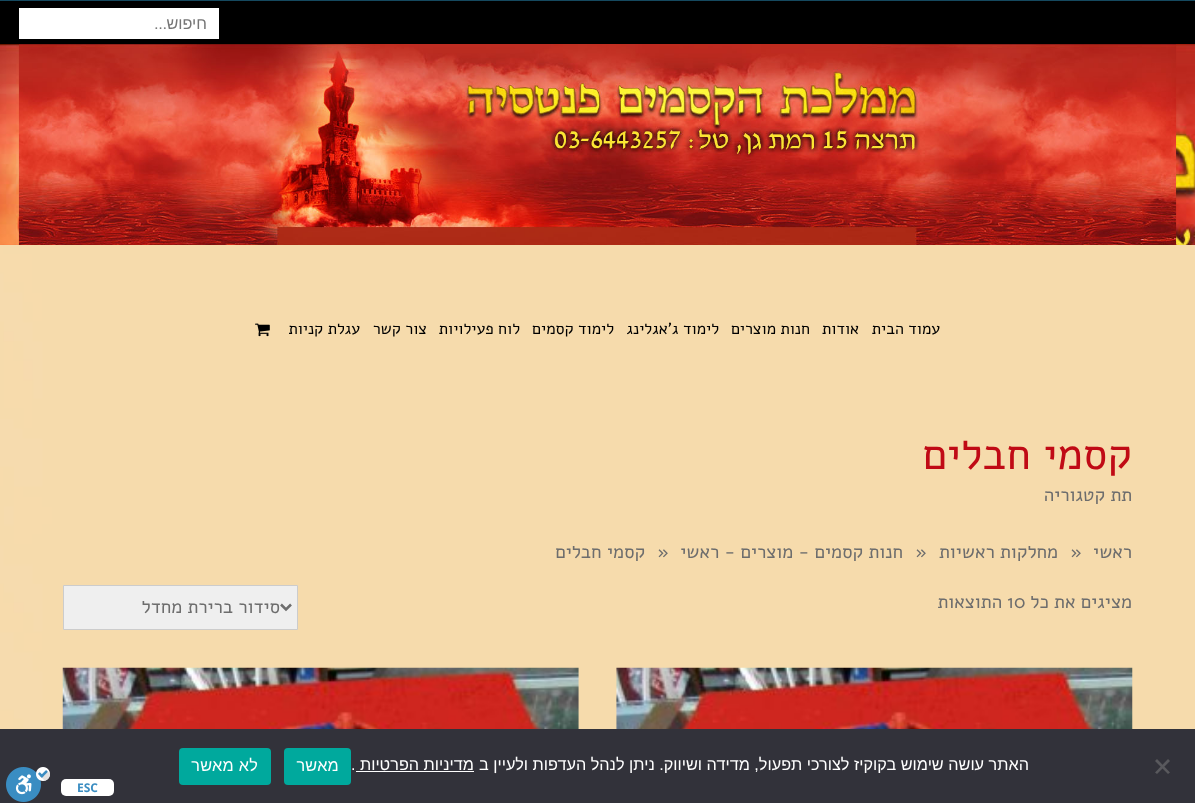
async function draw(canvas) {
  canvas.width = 1195;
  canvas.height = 803;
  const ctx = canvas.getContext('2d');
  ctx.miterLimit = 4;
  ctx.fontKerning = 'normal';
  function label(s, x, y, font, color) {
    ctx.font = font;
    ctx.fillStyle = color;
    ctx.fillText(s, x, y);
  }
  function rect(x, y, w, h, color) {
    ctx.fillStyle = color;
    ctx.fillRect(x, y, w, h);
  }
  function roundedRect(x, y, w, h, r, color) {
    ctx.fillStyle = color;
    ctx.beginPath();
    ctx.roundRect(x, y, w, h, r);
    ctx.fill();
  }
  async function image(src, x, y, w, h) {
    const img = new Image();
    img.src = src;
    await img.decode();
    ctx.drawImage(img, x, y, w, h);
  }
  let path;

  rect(0, 0, 1195, 803, '#fff');
  await image('assets/img1.png', 0, 245, 1195, 484);
  rect(0, 1, 1195, 43, '#000');
  rect(19, 8, 200, 31, '#fff');
  ctx.direction = 'rtl';
  label('חיפוש', 207, 29, '16.25px Liberation Sans', '#757575');
  label('...', 167, 29, '16.25px Roboto', '#757575');
  await image('assets/img2.png', 0, 44, 1195, 201);
  await image('assets/img3.png', 18, 44, 1159, 201);
  label('עמוד הבית', 940, 334, '16px Alef', '#000');
  label('אודות', 859, 334, '16px Alef', '#000');
  label('חנות מוצרים', 810, 334, '16px Alef', '#000');
  label('לימוד ג\'אגלינג', 719, 334, '16px Alef', '#000');
  label('לימוד קסמים', 614, 334, '16px Alef', '#000');
  label('לוח פעילויות', 520, 334, '16px Alef', '#000');
  label('צור קשר', 427, 334, '16px Alef', '#000');
  label('עגלת קניות', 360, 334, '16px Alef', '#000');
  await image('assets/img4.png', 255, 323, 15, 14);
  label('קסמי חבלים', 1132, 469, '43.75px Alef', '#c00a15');
  label('תת קטגוריה', 1132, 501, '18.75px Alef', '#6d6d6d');
  label('ראשי', 1132, 558, '18.75px Alef', '#6d6d6d');
  ctx.direction = 'ltr';
  label('»', 1070, 558, '18.75px Alef', '#6d6d6d');
  ctx.direction = 'rtl';
  label('מחלקות ראשיות', 1058, 558, '18.75px Alef', '#6d6d6d');
  ctx.direction = 'ltr';
  label('»', 915, 558, '18.75px Alef', '#6d6d6d');
  ctx.direction = 'rtl';
  label('חנות קסמים - מוצרים - ראשי', 903, 558, '18.75px Alef', '#6d6d6d');
  ctx.direction = 'ltr';
  label('»', 657, 558, '18.75px Alef', '#6d6d6d');
  ctx.direction = 'rtl';
  label('קסמי חבלים', 645, 558, '18.75px Alef', '#6d6d6d');
  label('מציגים את כל', 1132, 608, '18.75px Alef', '#6d6d6d');
  ctx.direction = 'ltr';
  label('10', 1007, 608, '18.75px Alef', '#6d6d6d');
  ctx.direction = 'rtl';
  label('התוצאות', 1002, 608, '18.75px Alef', '#6d6d6d');
  ctx.fillStyle = '#efefef';
  ctx.beginPath();
  ctx.rect(63.5, 585.5, 234, 44);
  ctx.fill();
  ctx.strokeStyle = '#ccc';
  ctx.stroke();
  path = new Path2D('M281 604.5L286 609.5L291 604.5');
  ctx.strokeStyle = '#6d6d6d';
  ctx.lineWidth = 2.5;
  ctx.stroke(path);
  label('סידור ברירת מחדל', 280, 613, '18.75px Alef', '#6d6d6d');
  await image('assets/img5.png', 616, 667, 517, 62);
  await image('assets/img6.png', 62, 667, 517, 62);
  rect(0, 729, 1195, 74, '#32323a');
  ctx.fillStyle = '#59595d';
  path = new Path2D('M1168 759L1170 761L1157 774L1155 772.5Z');
  ctx.fill(path);
  path = new Path2D('M1155 761L1157 759L1170 772.5L1168 774Z');
  ctx.fill(path);
  label('האתר עושה שימוש בקוקיז לצורכי תפעול, מדידה ושיווק. ניתן לנהל העדפות ולעיין ב', 1029, 770, '16.25px Liberation Sans', '#fff');
  label('מדיניות הפרטיות', 474, 770, '16.25px Liberation Sans', '#fff');
  rect(356, 771, 118, 1, '#fff');
  ctx.direction = 'ltr';
  label('.', 351, 770, '16.25px Liberation Sans', '#fff');
  roundedRect(284, 748, 67, 37, 4, '#00a99d');
  ctx.letterSpacing = '0.25px';
  ctx.direction = 'rtl';
  label('מאשר', 339, 771, '16.25px Liberation Sans', '#fff');
  roundedRect(179, 748, 92, 37, 4, '#00a99d');
  label('לא מאשר', 258, 771, '16.25px Liberation Sans', '#fff');
  rect(0, 0, 1195, 1, '#15495f');
  roundedRect(61, 779, 53, 17, 5, '#fff');
  ctx.letterSpacing = '0px';
  ctx.direction = 'ltr';
  label('ESC', 77, 792, 'bold 12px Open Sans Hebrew', '#3a8dc2');
  await image('assets/img7.png', 6, 767, 44, 35);
}

draw(document.querySelector('canvas'));
